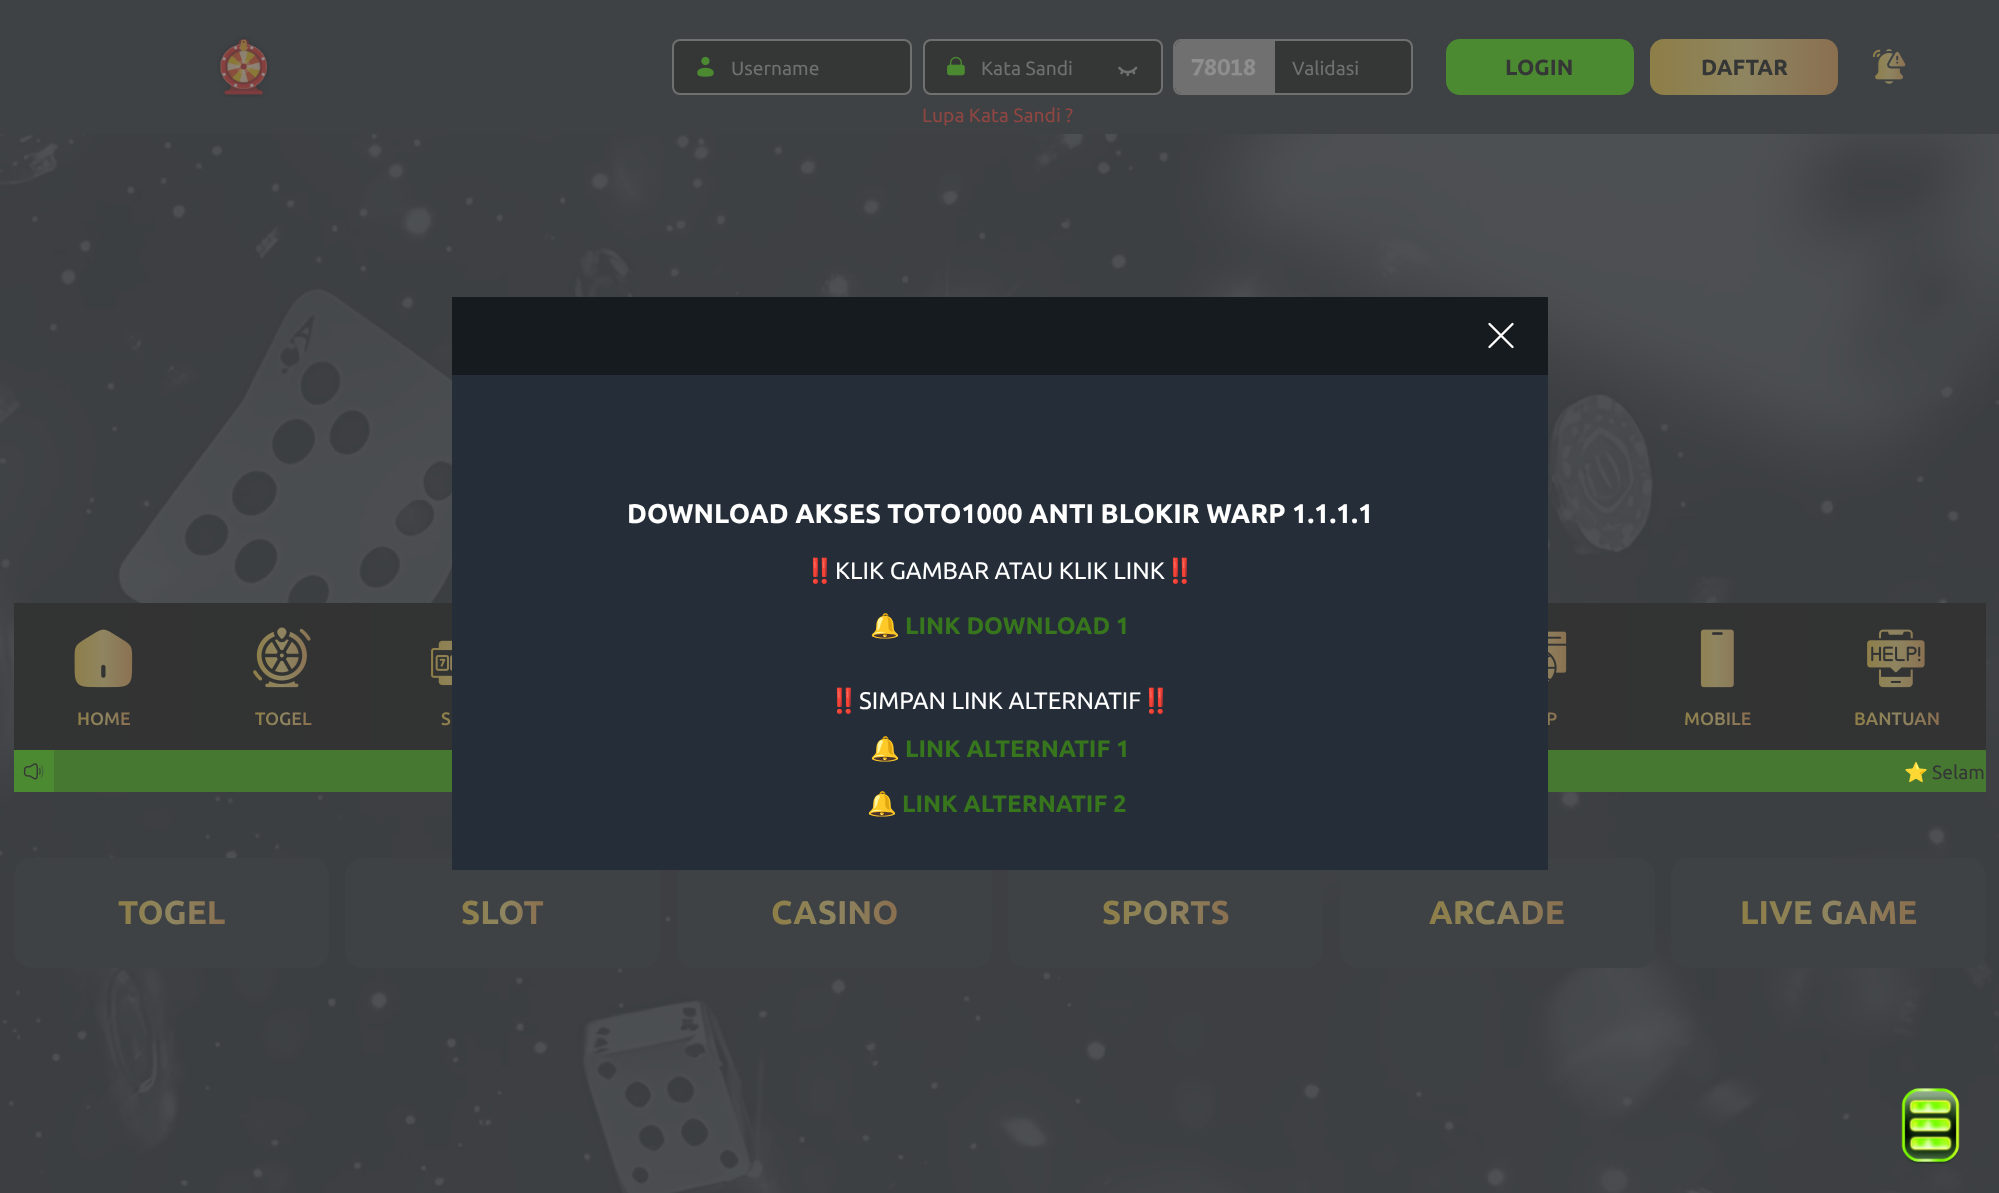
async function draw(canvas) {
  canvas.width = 1999;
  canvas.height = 1193;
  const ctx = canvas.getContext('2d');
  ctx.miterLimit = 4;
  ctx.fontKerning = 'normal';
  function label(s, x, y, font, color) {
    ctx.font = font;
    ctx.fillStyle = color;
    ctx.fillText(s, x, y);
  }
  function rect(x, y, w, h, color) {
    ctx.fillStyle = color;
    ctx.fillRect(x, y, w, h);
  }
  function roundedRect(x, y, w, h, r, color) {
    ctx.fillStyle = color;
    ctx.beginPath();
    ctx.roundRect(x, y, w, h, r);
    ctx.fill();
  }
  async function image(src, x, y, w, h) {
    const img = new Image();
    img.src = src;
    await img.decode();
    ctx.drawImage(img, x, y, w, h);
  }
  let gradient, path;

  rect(0, 0, 1999, 1193, '#fff');
  await image('assets/img1.png', 0, 134, 1999, 1059);
  rect(0, 0, 1999, 134, '#3e4245');
  await image('assets/img2.png', 217, 36, 53, 62);
  ctx.fillStyle = '#353636';
  ctx.beginPath();
  ctx.roundRect(673, 40, 238, 54, 7);
  ctx.fill();
  ctx.strokeStyle = '#707070';
  ctx.lineWidth = 2;
  ctx.stroke();
  await image('assets/img3.png', 697, 56, 17, 21);
  label('Username', 731, 75, '19.25px Ubuntu', '#707070');
  ctx.fillStyle = '#353636';
  ctx.beginPath();
  ctx.roundRect(924, 40, 238, 54, 7);
  ctx.fill();
  ctx.stroke();
  await image('assets/img4.png', 947, 56, 18, 20);
  label('Kata Sandi', 981, 75, '19.25px Ubuntu', '#707070');
  await image('assets/img5.png', 1118, 66, 20, 11);
  label('Lupa Kata Sandi ?', 922, 122, '19.25px Ubuntu', '#8f4642');
  ctx.fillStyle = '#353636';
  ctx.beginPath();
  ctx.roundRect(1174, 40, 238, 54, 7);
  ctx.fill();
  ctx.stroke();
  ctx.fillStyle = '#707070';
  ctx.beginPath();
  ctx.roundRect(1175, 41, 100, 52, [6, 0, 0, 6]);
  ctx.fill();
  await image('assets/img6.png', 1191, 59, 65, 17);
  label('Validasi', 1292, 75, '19.25px Ubuntu', '#707070');
  roundedRect(1446, 39, 188, 56, 14, '#4c8a31');
  label('LOGIN', 1505, 75, 'bold 22px Ubuntu', '#353636');
  gradient = ctx.createLinearGradient(1650, 67, 1838, 67);
  gradient.addColorStop(0, '#8e7e47');
  gradient.addColorStop(0.5, '#8e8560');
  gradient.addColorStop(1, '#8a6f4f');
  ctx.fillStyle = gradient;
  ctx.beginPath();
  ctx.roundRect(1650, 39, 188, 56, 14);
  ctx.fill();
  label('DAFTAR', 1701, 75, 'bold 22px Ubuntu', '#353636');
  await image('assets/img7.png', 1872, 49, 34, 35);
  gradient = ctx.createLinearGradient(194, 677, 13, 677);
  gradient.addColorStop(0, '#333334');
  gradient.addColorStop(1, '#323333');
  ctx.fillStyle = gradient;
  ctx.fillRect(14, 603, 180, 147);
  await image('assets/img8.png', 74, 629, 59, 59);
  ctx.font = '500 18px Ubuntu';
  gradient = ctx.createLinearGradient(77, 718, 130, 718);
  gradient.addColorStop(0, '#8e7e47');
  gradient.addColorStop(0.5, '#8e8560');
  gradient.addColorStop(1, '#8a6f4f');
  ctx.fillStyle = gradient;
  ctx.fillText('HOME', 77, 725);
  gradient = ctx.createLinearGradient(372, 677, 194, 677);
  gradient.addColorStop(0, '#333334');
  gradient.addColorStop(1, '#323333');
  ctx.fillStyle = gradient;
  ctx.fillRect(194, 603, 178, 147);
  await image('assets/img9.png', 253, 627, 58, 61);
  gradient = ctx.createLinearGradient(255, 718, 311, 718);
  gradient.addColorStop(0, '#8e7e47');
  gradient.addColorStop(0.5, '#8e8560');
  gradient.addColorStop(1, '#8a6f4f');
  ctx.fillStyle = gradient;
  ctx.fillText('TOGEL', 255, 725);
  gradient = ctx.createLinearGradient(552, 677, 372, 677);
  gradient.addColorStop(0, '#333334');
  gradient.addColorStop(1, '#323333');
  ctx.fillStyle = gradient;
  ctx.fillRect(372, 603, 80, 147);
  await image('assets/img10.png', 431, 640, 21, 46);
  gradient = ctx.createLinearGradient(441, 718, 483, 718);
  gradient.addColorStop(0, '#8e7e47');
  gradient.addColorStop(0.5, '#8e8560');
  gradient.addColorStop(1, '#8a6f4f');
  ctx.fillStyle = gradient;
  ctx.fillText('S', 441, 725);
  gradient = ctx.createLinearGradient(1628, 677, 1448, 677);
  gradient.addColorStop(0, '#333334');
  gradient.addColorStop(1, '#323333');
  ctx.fillStyle = gradient;
  ctx.fillRect(1548, 603, 80, 147);
  await image('assets/img11.png', 1548, 631, 19, 51);
  gradient = ctx.createLinearGradient(1518, 718, 1557, 718);
  gradient.addColorStop(0, '#8e7e47');
  gradient.addColorStop(0.5, '#8e8560');
  gradient.addColorStop(1, '#8a6f4f');
  ctx.fillStyle = gradient;
  ctx.fillText('P', 1546, 725);
  gradient = ctx.createLinearGradient(1806, 677, 1628, 677);
  gradient.addColorStop(0, '#333334');
  gradient.addColorStop(1, '#323333');
  ctx.fillStyle = gradient;
  ctx.fillRect(1628, 603, 178, 147);
  await image('assets/img12.png', 1700, 629, 34, 59);
  gradient = ctx.createLinearGradient(1684, 718, 1750, 718);
  gradient.addColorStop(0, '#8e7e47');
  gradient.addColorStop(0.5, '#8e8560');
  gradient.addColorStop(1, '#8a6f4f');
  ctx.fillStyle = gradient;
  ctx.fillText('MOBILE', 1684, 725);
  gradient = ctx.createLinearGradient(1986, 677, 1806, 677);
  gradient.addColorStop(0, '#333334');
  gradient.addColorStop(1, '#323333');
  ctx.fillStyle = gradient;
  ctx.fillRect(1806, 603, 180, 147);
  await image('assets/img13.png', 1867, 629, 58, 59);
  gradient = ctx.createLinearGradient(1854, 718, 1939, 718);
  gradient.addColorStop(0, '#8e7e47');
  gradient.addColorStop(0.5, '#8e8560');
  gradient.addColorStop(1, '#8a6f4f');
  ctx.fillStyle = gradient;
  ctx.fillText('BANTUAN', 1854, 725);
  rect(54, 750, 1932, 42, '#467831');
  rect(14, 750, 40, 42, '#4c8a31');
  await image('assets/img14.png', 23, 763, 21, 17);
  label('⭐️', 1904, 779, '19.25px Noto Color Emoji', '#353636');
  label('Selam', 1932, 779, '19.25px Ubuntu', '#353636');
  roundedRect(14, 858, 315, 110, 17, '#3e4245');
  ctx.font = 'bold 33px Ubuntu';
  gradient = ctx.createLinearGradient(118, 912, 225, 912);
  gradient.addColorStop(0, '#8e7e47');
  gradient.addColorStop(0.5, '#8e8560');
  gradient.addColorStop(1, '#8a6f4f');
  ctx.fillStyle = gradient;
  ctx.fillText('TOGEL', 118, 924);
  roundedRect(345, 858, 315, 110, 17, '#3e4245');
  gradient = ctx.createLinearGradient(461, 912, 544, 912);
  gradient.addColorStop(0, '#8e7e47');
  gradient.addColorStop(0.5, '#8e8560');
  gradient.addColorStop(1, '#8a6f4f');
  ctx.fillStyle = gradient;
  ctx.fillText('SLOT', 461, 924);
  roundedRect(677, 858, 315, 110, 17, '#3e4245');
  gradient = ctx.createLinearGradient(771, 912, 897, 912);
  gradient.addColorStop(0, '#8e7e47');
  gradient.addColorStop(0.5, '#8e8560');
  gradient.addColorStop(1, '#8a6f4f');
  ctx.fillStyle = gradient;
  ctx.fillText('CASINO', 771, 924);
  roundedRect(1008, 858, 315, 110, 17, '#3e4245');
  gradient = ctx.createLinearGradient(1102, 912, 1229, 912);
  gradient.addColorStop(0, '#8e7e47');
  gradient.addColorStop(0.5, '#8e8560');
  gradient.addColorStop(1, '#8a6f4f');
  ctx.fillStyle = gradient;
  ctx.fillText('SPORTS', 1102, 924);
  roundedRect(1340, 858, 315, 110, 17, '#3e4245');
  gradient = ctx.createLinearGradient(1429, 912, 1564, 912);
  gradient.addColorStop(0, '#8e7e47');
  gradient.addColorStop(0.5, '#8e8560');
  gradient.addColorStop(1, '#8a6f4f');
  ctx.fillStyle = gradient;
  ctx.fillText('ARCADE', 1429, 924);
  roundedRect(1671, 858, 315, 110, 17, '#3e4245');
  gradient = ctx.createLinearGradient(1740, 912, 1917, 912);
  gradient.addColorStop(0, '#8e7e47');
  gradient.addColorStop(0.5, '#8e8560');
  gradient.addColorStop(1, '#8a6f4f');
  ctx.fillStyle = gradient;
  ctx.fillText('LIVE GAME', 1740, 924);
  await image('assets/img15.png', 1901, 1088, 59, 76);
  rect(452, 297, 1096, 78, '#161b20');
  path = new Path2D('M1512.5 324L1489.5 347M1489.5 324L1512.5 347');
  ctx.strokeStyle = '#fff';
  ctx.lineWidth = 2.4;
  ctx.lineCap = 'round';
  ctx.stroke(path);
  rect(452, 375, 1096, 495, '#252e38');
  label('DOWNLOAD AKSES TOTO1000 ANTI BLOKIR WARP 1.1.1.1', 627, 523, 'bold 27px Ubuntu', '#fff');
  label('‼️', 805, 579, '24px Noto Color Emoji', '#fff');
  label('KLIK GAMBAR ATAU KLIK LINK', 835, 579, '24px Ubuntu', '#fff');
  label('‼️', 1165, 579, '24px Noto Color Emoji', '#fff');
  label('🔔', 870, 634, '24px Noto Color Emoji', '#fff');
  label('LINK DOWNLOAD 1', 905, 634, 'bold 24px Ubuntu', '#38761d');
  label('‼️', 829, 709, '24px Noto Color Emoji', '#fff');
  label('SIMPAN LINK ALTERNATIF', 859, 709, '24px Ubuntu', '#fff');
  label('‼️', 1141, 709, '24px Noto Color Emoji', '#fff');
  label('🔔', 870, 757, '24px Noto Color Emoji', '#fff');
  label('LINK ALTERNATIF 1', 905, 757, 'bold 24px Ubuntu', '#38761d');
  label('🔔', 867, 812, 'bold 24px Noto Color Emoji', '#fff');
  label('LINK ALTERNATIF 2', 902, 812, 'bold 24px Ubuntu', '#38761d');
}

draw(document.querySelector('canvas'));
